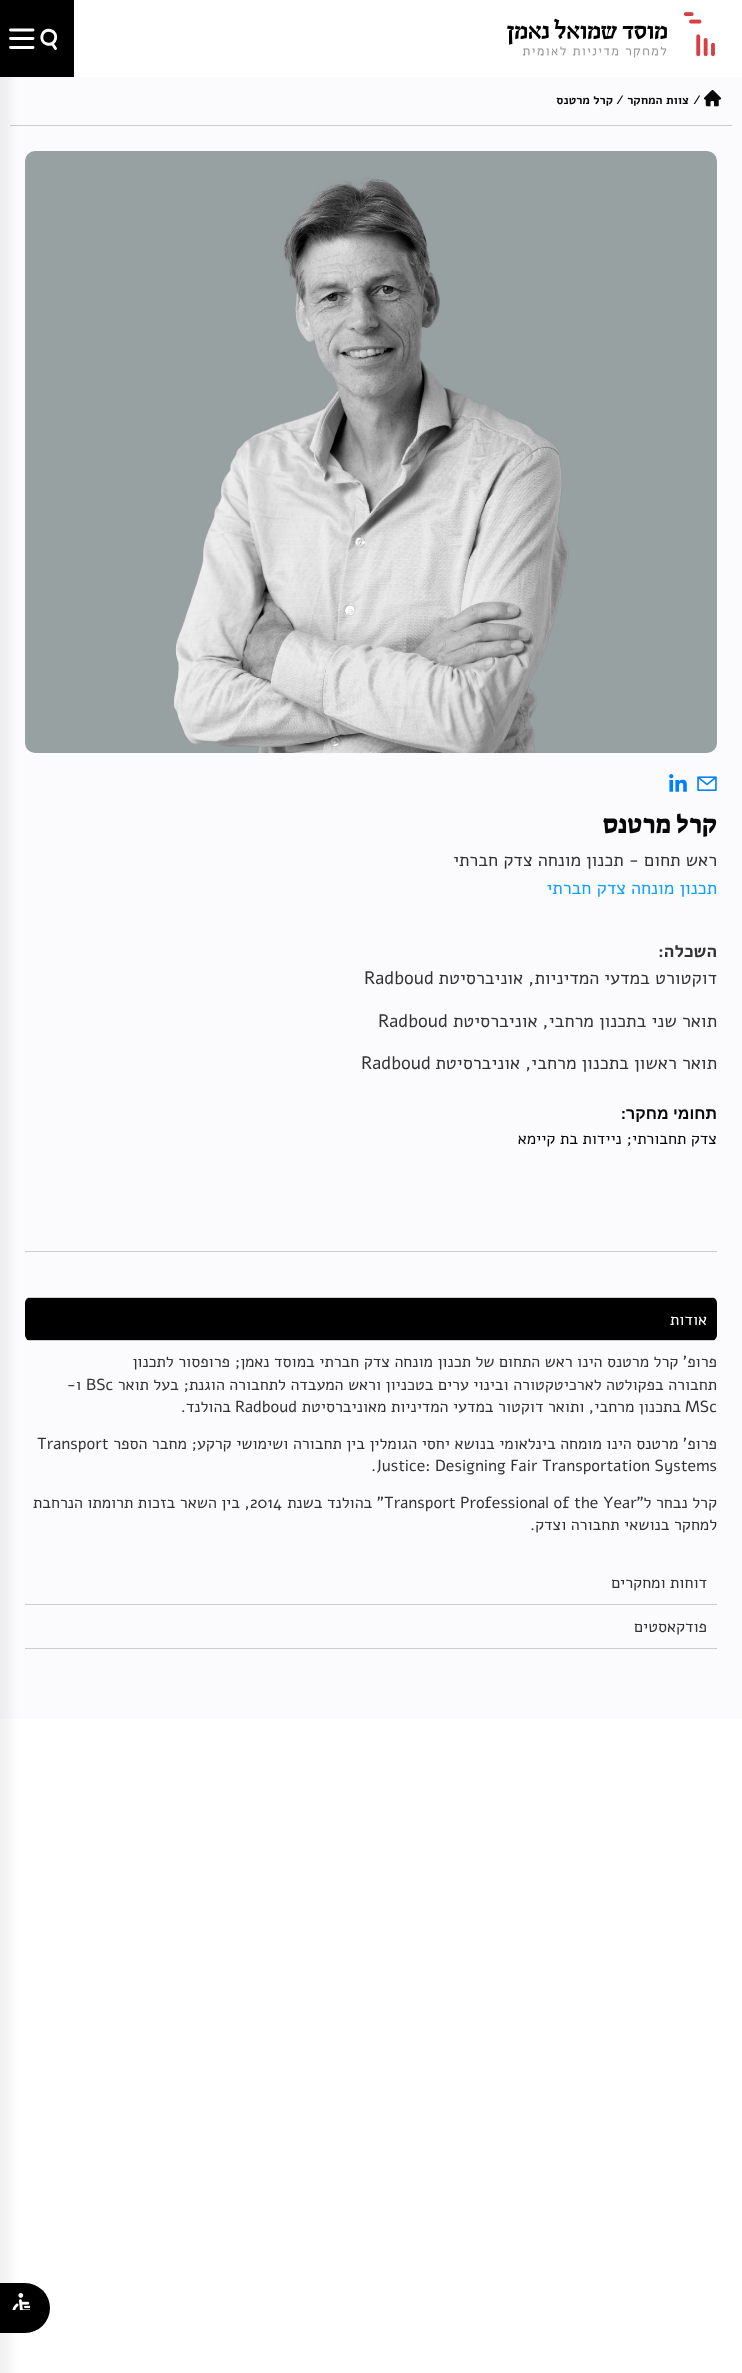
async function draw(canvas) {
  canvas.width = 742;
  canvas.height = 2373;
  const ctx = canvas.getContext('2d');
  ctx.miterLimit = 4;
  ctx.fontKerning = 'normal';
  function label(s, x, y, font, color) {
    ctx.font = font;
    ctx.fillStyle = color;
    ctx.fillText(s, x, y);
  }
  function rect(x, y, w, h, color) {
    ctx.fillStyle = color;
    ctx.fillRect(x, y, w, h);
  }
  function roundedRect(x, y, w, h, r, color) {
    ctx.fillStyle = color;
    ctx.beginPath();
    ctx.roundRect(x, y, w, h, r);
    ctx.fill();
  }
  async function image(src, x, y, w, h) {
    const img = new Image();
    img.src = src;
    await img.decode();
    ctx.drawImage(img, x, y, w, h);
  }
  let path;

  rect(0, 0, 742, 2373, '#fff');
  await image('assets/img1.png', 683, 12, 32, 45);
  await image('assets/img2.png', 507, 18, 160, 40);
  rect(0, 0, 74, 77, '#000');
  path = new Path2D('M50.5 30.5C59.5 32.5 56 46.5 47 44C38 42 41.5 28 50.5 30.5Z');
  ctx.strokeStyle = '#fff';
  ctx.lineWidth = 2.9;
  ctx.stroke(path);
  path = new Path2D('M55.5 48.5L52.5 44M33 30H10.5M33 38.5H10.5M33 47.5H10.5');
  ctx.lineCap = 'round';
  ctx.stroke(path);
  rect(0, 77, 742, 1642, '#fbfbfd');
  rect(10, 125, 722, 1, '#ccc');
  await image('assets/img3.png', 704, 90, 17, 17);
  label('/', 693, 104, 'bold 12px Alef', '#080808');
  ctx.direction = 'rtl';
  label('צוות המחקר', 689, 104, 'bold 12px Alef', '#080808');
  ctx.direction = 'ltr';
  label('/', 616, 104, 'bold 12px Alef', '#080808');
  ctx.direction = 'rtl';
  label('קרל מרטנס', 613, 104, 'bold 12px Alef', '#080808');
  roundedRect(25, 151, 692, 602, 10, '#98a1a2');
  rect(25, 1251, 692, 1, '#ccc');
  roundedRect(25, 1297, 692, 44, 6, '#000');
  rect(25, 1604, 692, 1, '#ccc');
  rect(25, 1648, 692, 1, '#ccc');
  ctx.fillStyle = '#000';
  ctx.beginPath();
  ctx.roundRect(0, 2283, 50, 50, [0, 25, 25, 0]);
  ctx.fill();
  await image('assets/img7.png', 12, 2293, 18, 17);
  ctx.fillStyle = '#0000000d';
  ctx.filter = 'blur(5px)';
  ctx.beginPath();
  ctx.rect(-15, -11, 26, 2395);
  ctx.fill();
  ctx.filter = 'none';
  await image('assets/img4.png', 174, 177, 395, 576);
  await image('assets/img5.png', 697, 776, 20, 15);
  await image('assets/img6.png', 669, 774, 18, 18);
  label('קרל מרטנס', 717, 833, '26px Suez One', '#080808');
  label('ראש תחום - תכנון מונחה צדק חברתי', 717, 866, '18px Alef', '#333');
  label('תכנון מונחה צדק חברתי', 717, 894, '18px Alef', '#0da1ff');
  label('השכלה:', 717, 957, 'bold 18px Alef', '#333');
  label('דוקטורט במדעי המדיניות, אוניברסיטת', 717, 984, '18px Alef', '#333');
  ctx.direction = 'ltr';
  label('Radboud', 364, 984, '18px Alef', '#333');
  ctx.direction = 'rtl';
  label('תואר שני בתכנון מרחבי, אוניברסיטת', 717, 1027, '18px Alef', '#333');
  ctx.direction = 'ltr';
  label('Radboud', 378, 1027, '18px Alef', '#333');
  ctx.direction = 'rtl';
  label('תואר ראשון בתכנון מרחבי, אוניברסיטת', 717, 1069, '18px Alef', '#333');
  ctx.direction = 'ltr';
  label('Radboud', 361, 1069, '18px Alef', '#333');
  ctx.direction = 'rtl';
  label('תחומי מחקר:', 717, 1119, 'bold 16px Liberation Sans', '#080808');
  label('צדק תחבורתי; ניידות בת קיימא', 717, 1144, '16px Alef', '#080808');
  rect(28, 1297, 686, 1, '#ccc');
  rect(28, 1340, 686, 1, '#ccc');
  label('אודות', 707, 1325, '16px Alef', '#fff');
  label('פרופ’ קרל מרטנס הינו ראש התחום של תכנון מונחה צדק חברתי במוסד נאמן; פרופסור לתכנון', 717, 1367, '16px Alef', '#333');
  label('תחבורה בפקולטה לארכיטקטורה ובינוי ערים בטכניון וראש המעבדה לתחבורה הוגנת; בעל תואר', 717, 1390, '16px Alef', '#333');
  ctx.direction = 'ltr';
  label('BSc', 86, 1390, '16px Alef', '#333');
  ctx.direction = 'rtl';
  label('ו-', 81, 1390, '16px Alef', '#333');
  ctx.direction = 'ltr';
  label('MSc', 685, 1412, '16px Alef', '#333');
  ctx.direction = 'rtl';
  label('בתכנון מרחבי, ותואר דוקטור במדעי המדיניות מאוניברסיטת', 681, 1412, '16px Alef', '#333');
  ctx.direction = 'ltr';
  label('Radboud', 235, 1412, '16px Alef', '#333');
  ctx.direction = 'rtl';
  label('בהולנד.', 231, 1412, '16px Alef', '#333');
  label('פרופ’ מרטנס הינו מומחה בינלאומי בנושא יחסי הגומלין בין תחבורה ושימושי קרקע; מחבר הספר', 717, 1449, '16px Alef', '#333');
  ctx.direction = 'ltr';
  label('Transport', 37, 1449, '16px Alef', '#333');
  label('.Justice: Designing Fair Transportation Systems', 371, 1471, '16px Alef', '#333');
  ctx.direction = 'rtl';
  label('קרל נבחר ל”', 717, 1508, '16px Alef', '#333');
  ctx.direction = 'ltr';
  label('Transport Professional of the Year', 384, 1508, '16px Alef', '#333');
  ctx.direction = 'rtl';
  label('” בהולנד בשנת', 384, 1508, '16px Alef', '#333');
  ctx.direction = 'ltr';
  label('2014', 250, 1508, '16px Alef', '#333');
  ctx.direction = 'rtl';
  label(', בין השאר בזכות תרומתו הנרחבת', 250, 1508, '16px Alef', '#333');
  label('למחקר בנושאי תחבורה וצדק.', 717, 1530, '16px Alef', '#333');
  label('דוחות ומחקרים', 707, 1588, '16px Alef', '#333');
  label('פודקאסטים', 707, 1632, '16px Alef', '#333');
}

draw(document.querySelector('canvas'));
